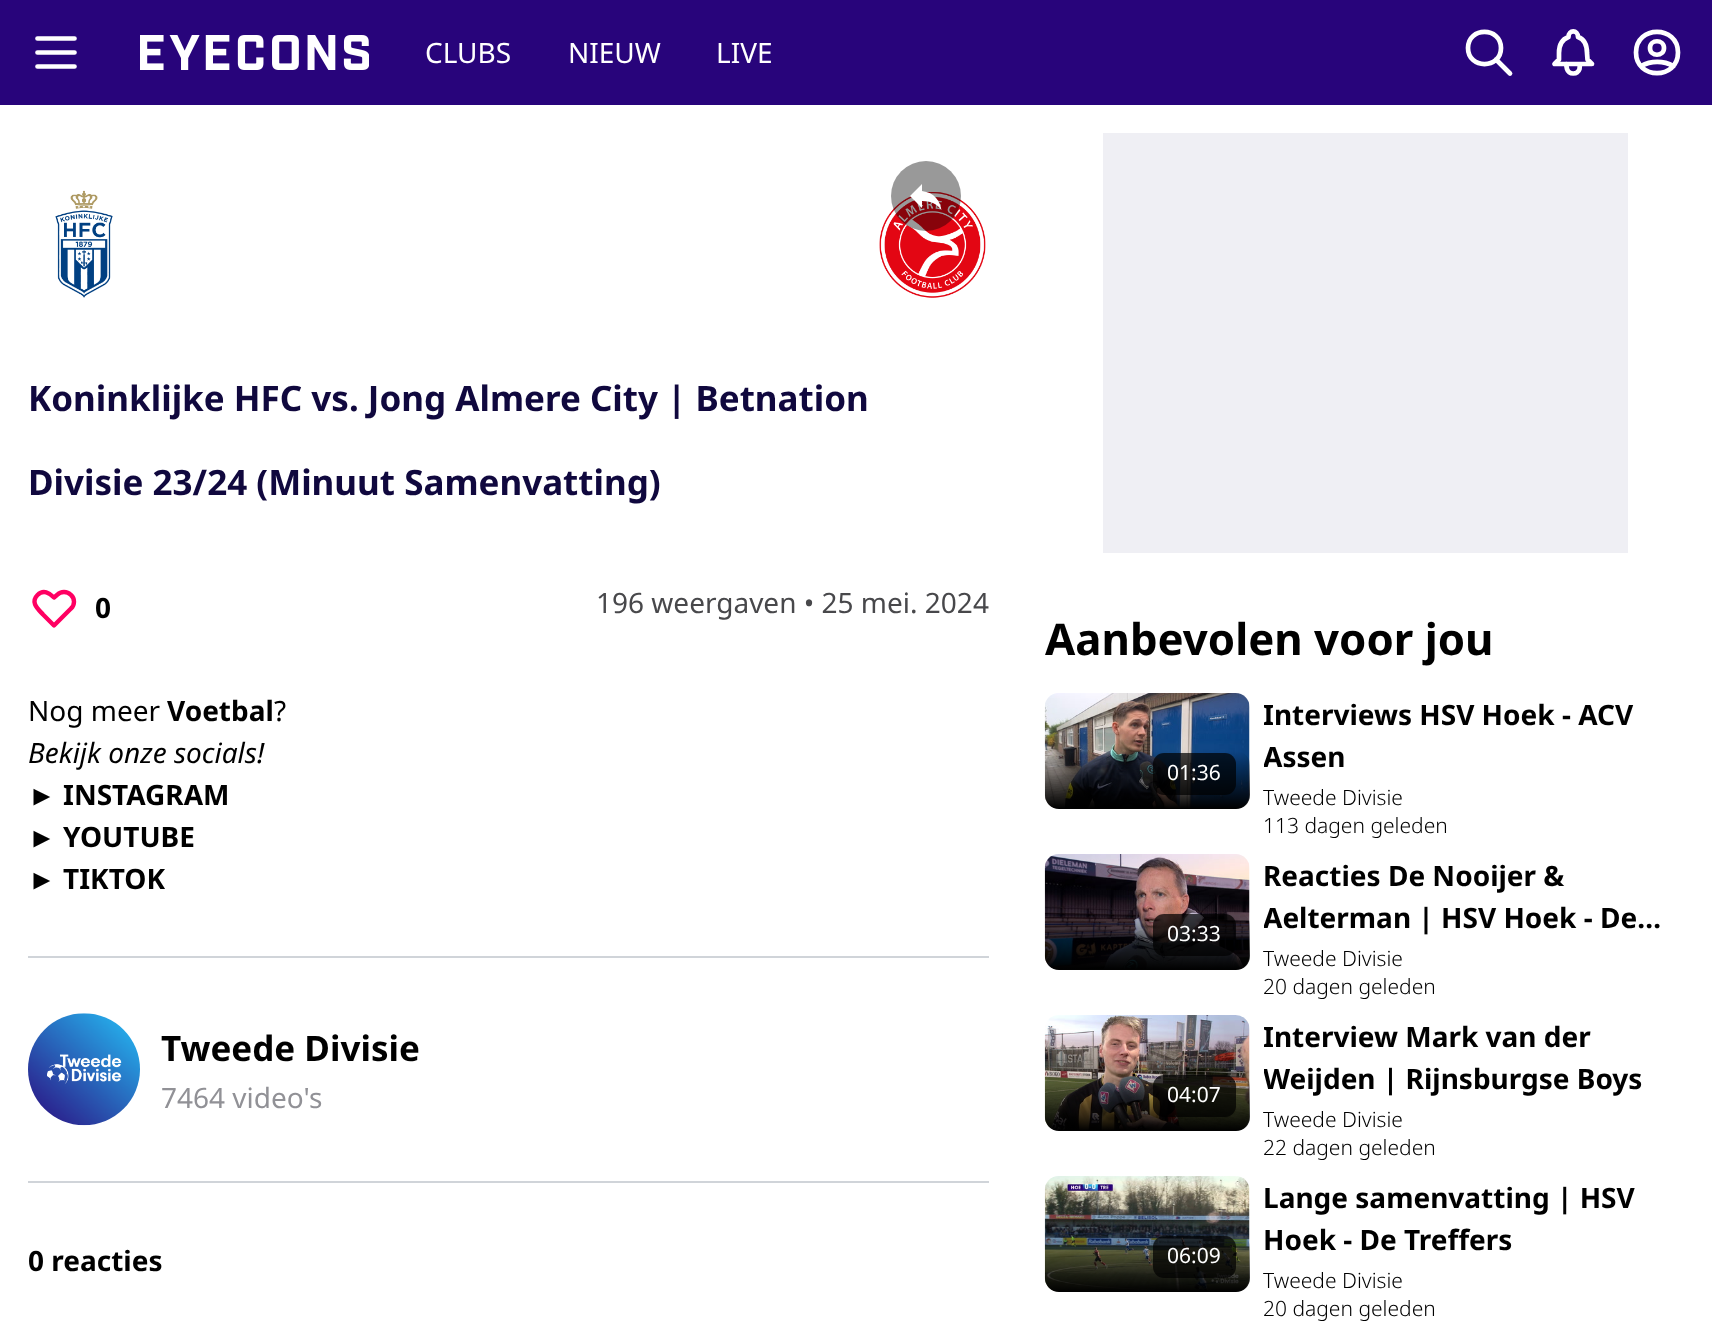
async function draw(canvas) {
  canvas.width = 1712;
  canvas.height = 1337;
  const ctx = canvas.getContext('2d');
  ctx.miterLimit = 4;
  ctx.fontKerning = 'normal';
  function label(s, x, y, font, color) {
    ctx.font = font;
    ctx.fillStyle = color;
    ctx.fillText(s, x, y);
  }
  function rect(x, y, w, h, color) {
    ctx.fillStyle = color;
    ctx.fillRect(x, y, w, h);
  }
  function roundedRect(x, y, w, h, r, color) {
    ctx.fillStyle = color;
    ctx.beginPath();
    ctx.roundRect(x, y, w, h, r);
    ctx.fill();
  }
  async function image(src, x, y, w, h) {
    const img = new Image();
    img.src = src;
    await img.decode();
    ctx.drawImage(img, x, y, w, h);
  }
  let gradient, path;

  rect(0, 0, 1712, 1337, '#fff');
  rect(0, 0, 1712, 105, '#28047b');
  path = new Path2D('M37.5 38.5H74.5M37.5 52.5H74.5M37.5 66.5H74.5');
  ctx.strokeStyle = '#fff';
  ctx.lineWidth = 4.7;
  ctx.lineCap = 'round';
  ctx.lineJoin = 'round';
  ctx.stroke(path);
  await image('assets/img1.png', 140, 35, 229, 35);
  label('CLUBS', 425, 63, '28px Noto Sans', '#fff');
  label('NIEUW', 568, 63, '28px Noto Sans', '#fff');
  label('LIVE', 716, 63, '28px Noto Sans', '#fff');
  path = new Path2D('M1510 73.5L1496 59.5M1501 48C1501 69.5 1468 69.5 1468 48C1468 26.5 1501 26.5 1501 48Z');
  ctx.stroke(path);
  path = new Path2D('M1580 64H1592L1587.5 59.5L1587 53C1587 46 1585 39.5 1578 37C1578 29.5 1568.5 29.5 1568.5 37C1561.5 39.5 1559 46 1559 53V59.5L1554.5 64H1566M1580 64L1579.5 69C1577.5 75 1569 75 1567 69L1566 64M1580 64H1566');
  ctx.stroke(path);
  path = new Path2D('M1641 66C1651 60.5 1663.5 60.5 1673.5 66M1664 48C1664 57 1650 57 1650 48C1650 39 1664 39 1664 48ZM1678 52.5C1678 80 1636 80 1636 52.5C1636 25 1678 25 1678 52.5Z');
  ctx.stroke(path);
  await image('assets/img3.png', 879, 192, 107, 106);
  ctx.fillStyle = '#00000066';
  ctx.beginPath();
  ctx.arc(926, 196, 35, 0, 2 * Math.PI);
  ctx.fill();
  ctx.fillStyle = '#fff';
  path = new Path2D('M922 191V184L910 196L922 208V201C931 201 937 204 941.5 210C940 201 934.5 192.5 922 191Z');
  ctx.fill(path);
  await image('assets/img2.png', 55, 190, 58, 108);
  label('Koninklijke HFC vs. Jong Almere City | Betnation', 28, 411, 'bold 35px Noto Sans', '#10083e');
  label('Divisie 23/24 (Minuut Samenvatting)', 28, 495, 'bold 35px Noto Sans', '#10083e');
  path = new Path2D('M37.5 595C30 602.5 38 609 43 614.5L54 625.5L71 608.5C75 605 75 598.5 71 595C67 591 61 591 57 595L54 597.5C49.5 593 43.5 589 37.5 595Z');
  ctx.strokeStyle = '#ff0062';
  ctx.lineWidth = 4.4;
  ctx.stroke(path);
  label('0', 95, 618, 'bold 28px Noto Sans', '#000');
  label('196 weergaven • 25 mei. 2024', 596, 613, '28px Noto Sans', '#48484b');
  label('Nog meer', 28, 721, '28px Noto Sans', '#000');
  label('Voetbal', 167, 721, 'bold 28px Noto Sans', '#000');
  label('?', 274, 721, '28px Noto Sans', '#000');
  label('Bekijk onze socials!', 28, 763, 'italic 28px Noto Sans', '#000');
  label('►', 28, 805, 'bold 28px Liberation Sans', '#000');
  label('INSTAGRAM', 63, 805, 'bold 28px Noto Sans', '#000');
  label('►', 28, 847, 'bold 28px Liberation Sans', '#000');
  label('YOUTUBE', 63, 847, 'bold 28px Noto Sans', '#000');
  label('►', 28, 889, 'bold 28px Liberation Sans', '#000');
  label('TIKTOK', 63, 889, 'bold 28px Noto Sans', '#000');
  rect(28, 956, 961, 2, '#d0d4d9');
  await image('assets/img4.png', 28, 1013, 112, 113);
  label('Tweede Divisie', 161, 1061, 'bold 35px Noto Sans', '#000');
  label('7464 video\'s', 161, 1108, '28px Noto Sans', '#919196');
  rect(28, 1181, 961, 2, '#d0d4d9');
  label('0 reacties', 28, 1271, 'bold 28px Noto Sans', '#000');
  rect(1103, 133, 525, 420, '#efeff4');
  label('Aanbevolen voor jou', 1045, 655, 'bold 43.75px Noto Sans', '#000');
  await image('assets/img5.png', 1044, 693, 206, 116);
  gradient = ctx.createLinearGradient(1147, 751, 1147, 809);
  gradient.addColorStop(0, '#00000000');
  gradient.addColorStop(1, '#000');
  ctx.fillStyle = gradient;
  ctx.beginPath();
  ctx.roundRect(1045, 751, 205, 58, 14);
  ctx.fill();
  roundedRect(1153, 753, 83, 42, 11, '#000000b3');
  label('01:36', 1167, 780, '21px Noto Sans', '#fff');
  ctx.save();
  ctx.beginPath();
  ctx.rect(1264, 693, 421, 84);
  ctx.clip();
  label('Interviews HSV Hoek - ACV', 1263, 725, 'bold 28px Noto Sans', '#000');
  label('Assen', 1263, 767, 'bold 28px Noto Sans', '#000');
  ctx.restore();
  label('Tweede Divisie', 1263, 805, '300 21px Noto Sans', '#000');
  label('113 dagen geleden', 1263, 833, '300 21px Noto Sans', '#000');
  await image('assets/img6.png', 1044, 854, 206, 116);
  gradient = ctx.createLinearGradient(1147, 912, 1147, 970);
  gradient.addColorStop(0, '#00000000');
  gradient.addColorStop(1, '#000');
  ctx.fillStyle = gradient;
  ctx.beginPath();
  ctx.roundRect(1045, 912, 205, 58, 14);
  ctx.fill();
  roundedRect(1153, 914, 83, 42, 11, '#000000b3');
  label('03:33', 1167, 941, '21px Noto Sans', '#fff');
  label('Reacties De Nooijer &', 1263, 886, 'bold 28px Noto Sans', '#000');
  ctx.save();
  ctx.beginPath();
  ctx.rect(1264, 854, 421, 84);
  ctx.clip();
  label('Aelterman | HSV Hoek - De…', 1263, 928, 'bold 28px Noto Sans', '#000');
  ctx.restore();
  label('Tweede Divisie', 1263, 966, '300 21px Noto Sans', '#000');
  label('20 dagen geleden', 1263, 994, '300 21px Noto Sans', '#000');
  await image('assets/img7.png', 1044, 1015, 206, 116);
  gradient = ctx.createLinearGradient(1147, 1073, 1147, 1131);
  gradient.addColorStop(0, '#00000000');
  gradient.addColorStop(1, '#000');
  ctx.fillStyle = gradient;
  ctx.beginPath();
  ctx.roundRect(1045, 1073, 205, 58, 14);
  ctx.fill();
  roundedRect(1153, 1075, 83, 42, 11, '#000000b3');
  label('04:07', 1167, 1102, '21px Noto Sans', '#fff');
  ctx.save();
  ctx.beginPath();
  ctx.rect(1264, 1015, 421, 84);
  ctx.clip();
  label('Interview Mark van der', 1263, 1047, 'bold 28px Noto Sans', '#000');
  label('Weijden | Rijnsburgse Boys', 1263, 1089, 'bold 28px Noto Sans', '#000');
  ctx.restore();
  label('Tweede Divisie', 1263, 1127, '300 21px Noto Sans', '#000');
  label('22 dagen geleden', 1263, 1155, '300 21px Noto Sans', '#000');
  await image('assets/img8.png', 1044, 1176, 206, 116);
  gradient = ctx.createLinearGradient(1147, 1234, 1147, 1292);
  gradient.addColorStop(0, '#00000000');
  gradient.addColorStop(1, '#000');
  ctx.fillStyle = gradient;
  ctx.beginPath();
  ctx.roundRect(1045, 1234, 205, 58, 14);
  ctx.fill();
  roundedRect(1153, 1236, 83, 42, 11, '#000000b3');
  label('06:09', 1167, 1263, '21px Noto Sans', '#fff');
  label('Lange samenvatting | HSV', 1263, 1208, 'bold 28px Noto Sans', '#000');
  label('Hoek - De Treffers', 1263, 1250, 'bold 28px Noto Sans', '#000');
  label('Tweede Divisie', 1263, 1288, '300 21px Noto Sans', '#000');
  label('20 dagen geleden', 1263, 1316, '300 21px Noto Sans', '#000');
}

draw(document.querySelector('canvas'));
